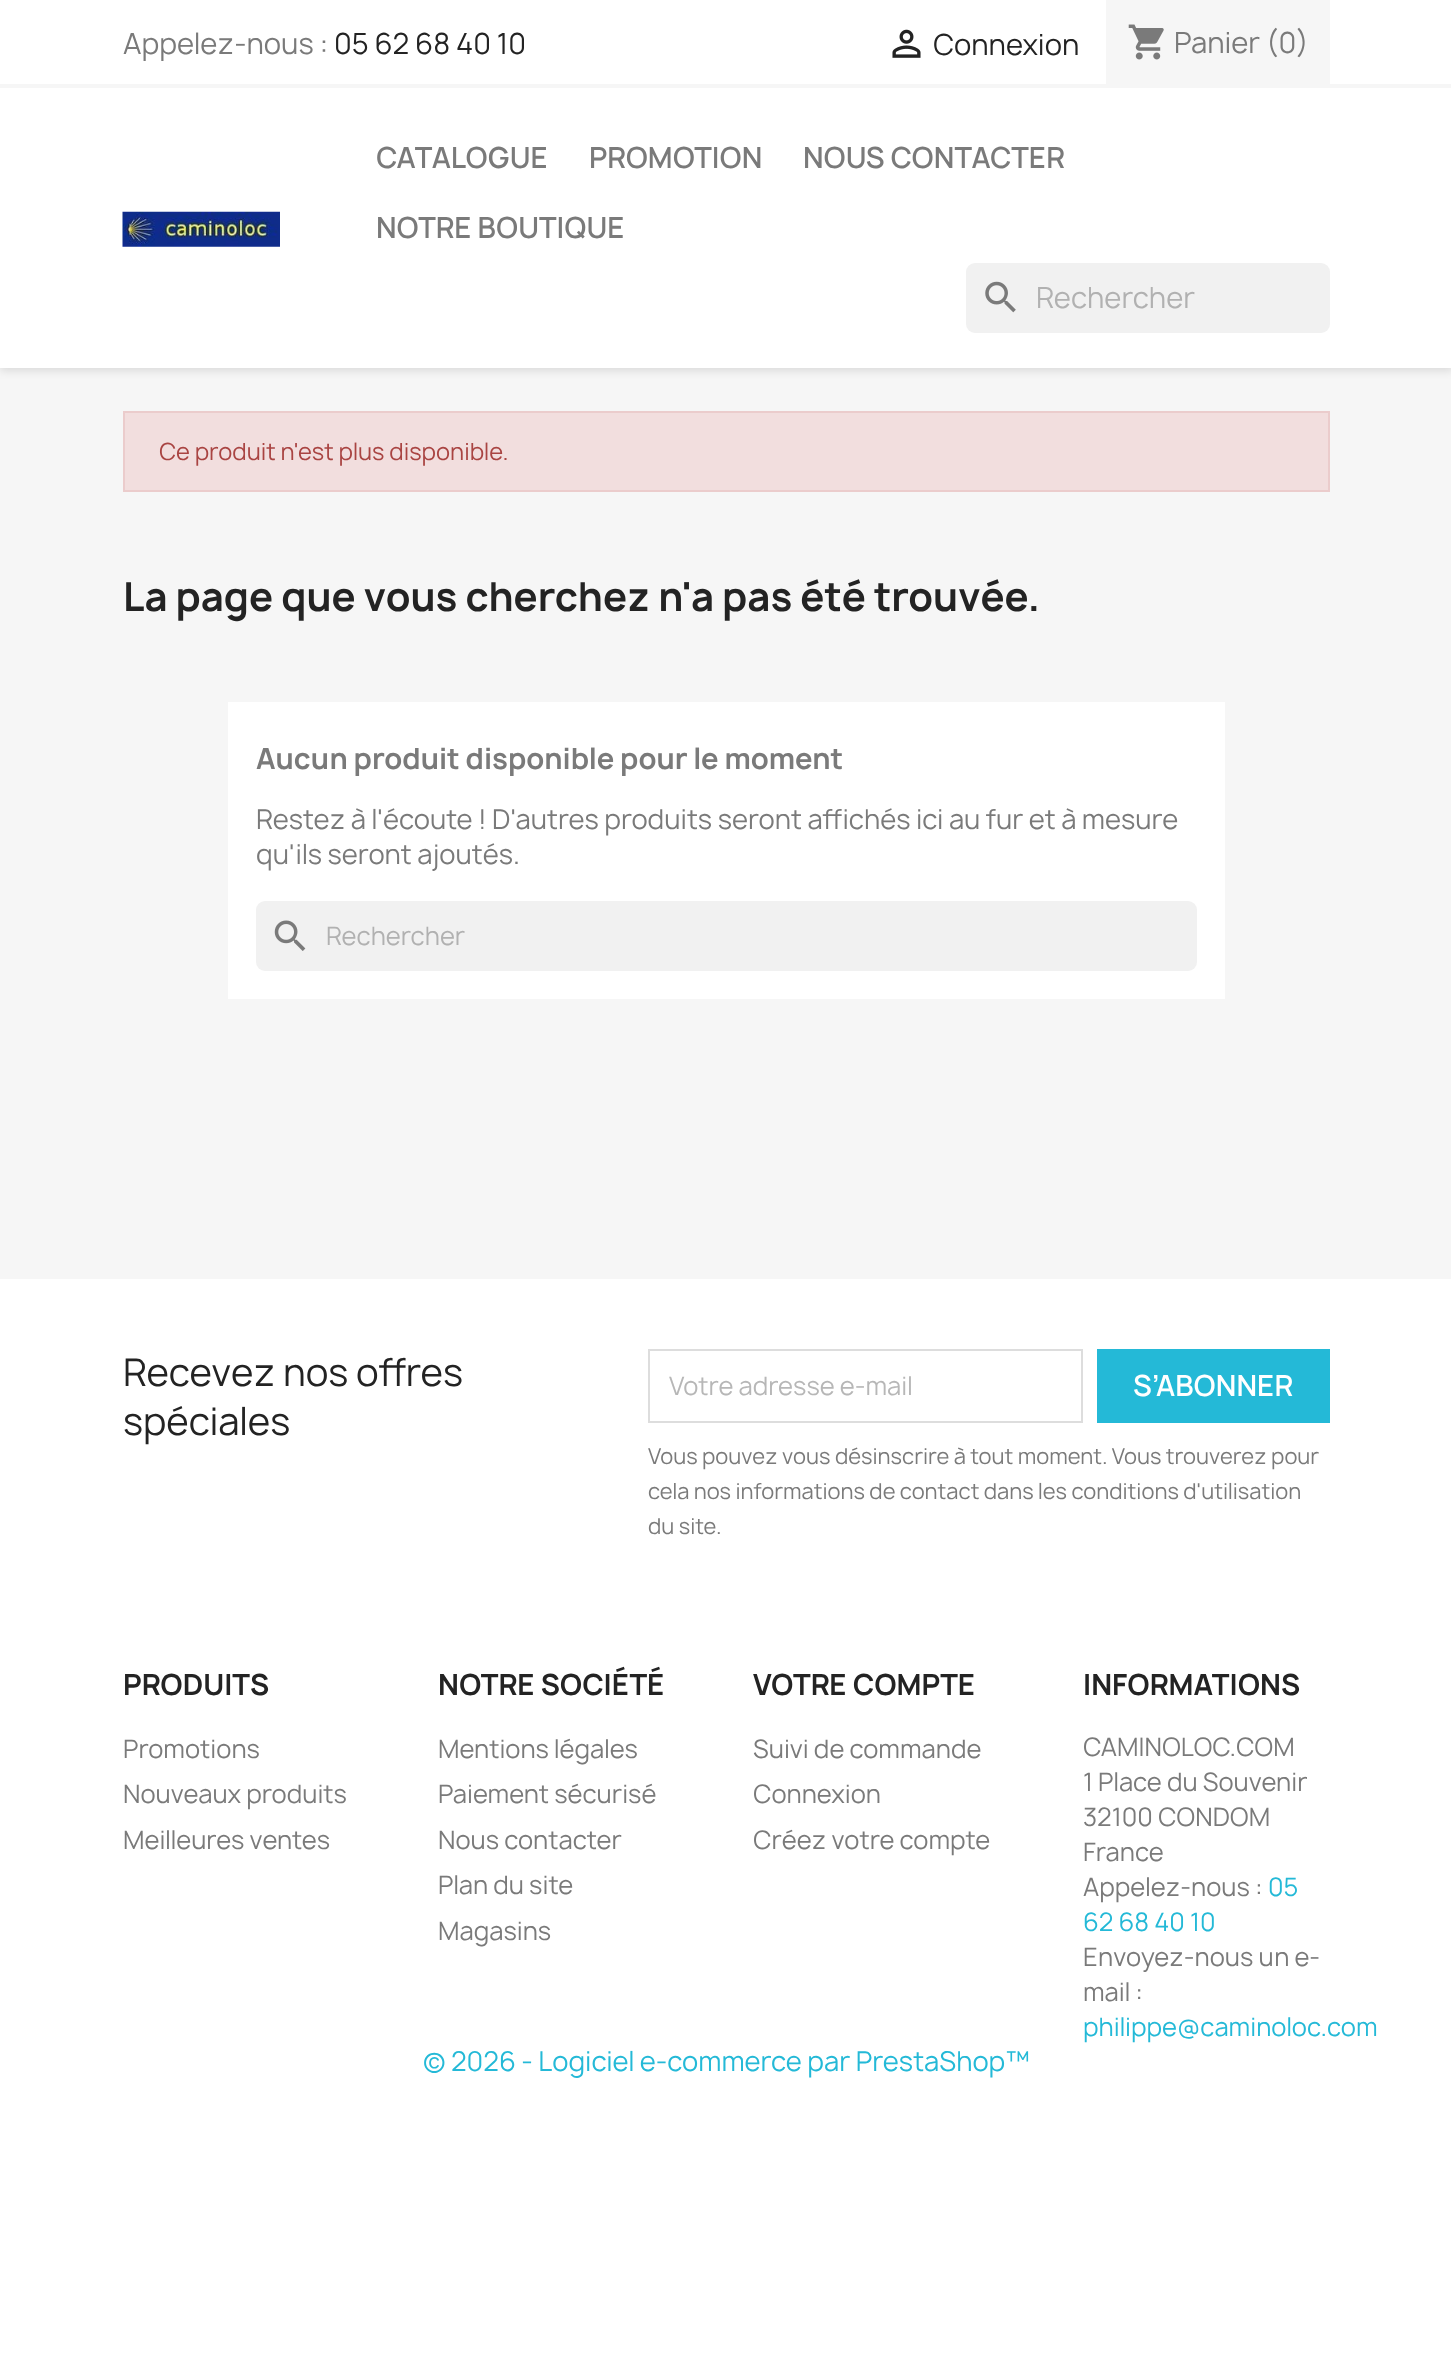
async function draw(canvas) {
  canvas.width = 1451;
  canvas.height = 2368;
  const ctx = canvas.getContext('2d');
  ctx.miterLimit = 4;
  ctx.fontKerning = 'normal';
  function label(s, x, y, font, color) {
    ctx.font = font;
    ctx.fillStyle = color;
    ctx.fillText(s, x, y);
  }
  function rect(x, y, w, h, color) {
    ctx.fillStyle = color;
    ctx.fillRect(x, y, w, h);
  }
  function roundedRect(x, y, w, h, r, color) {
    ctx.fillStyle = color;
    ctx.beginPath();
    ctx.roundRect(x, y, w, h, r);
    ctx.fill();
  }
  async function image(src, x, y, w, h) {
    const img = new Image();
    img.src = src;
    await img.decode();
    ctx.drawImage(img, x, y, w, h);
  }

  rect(0, 0, 1451, 2368, '#fff');
  rect(0, 368, 1451, 911, '#f6f6f6');
  ctx.fillStyle = '#0000001c';
  ctx.filter = 'blur(4.5px)';
  ctx.beginPath();
  ctx.rect(0, 4, 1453, 367);
  ctx.fill();
  ctx.filter = 'none';
  rect(0, 0, 1451, 368, '#fff');
  rect(0, 84, 1451, 4, '#f6f6f6');
  label('Appelez-nous :', 123, 54, '28px Manrope', '#7a7a7a');
  label('05 62 68 40 10', 334, 54, '28px Manrope', '#232323');
  await image('assets/img1.png', 892, 29, 29, 29);
  label('Connexion', 933, 55, '28px Manrope', '#232323');
  rect(1106, 0, 224, 84, '#f6f6f6');
  await image('assets/img2.png', 1128, 24, 36, 36);
  label('Panier (0)', 1174, 53, '28px Manrope', '#7a7a7a');
  await image('assets/img3.png', 122, 211, 158, 36);
  label('CATALOGUE', 376, 168, '600 28px Manrope', '#7a7a7a');
  label('PROMOTION', 589, 168, '600 28px Manrope', '#7a7a7a');
  label('NOUS CONTACTER', 803, 168, '600 28px Manrope', '#7a7a7a');
  label('NOTRE BOUTIQUE', 376, 238, '600 28px Manrope', '#7a7a7a');
  roundedRect(966, 263, 364, 70, 9, '#f1f1f1');
  await image('assets/img4.png', 985, 281, 31, 32);
  label('Rechercher', 1036, 308, '28px Manrope', '#b1b1b1');
  ctx.fillStyle = '#f2dede';
  ctx.beginPath();
  ctx.rect(124, 412, 1205, 79);
  ctx.fill();
  ctx.strokeStyle = '#ebcccc';
  ctx.lineWidth = 2;
  ctx.stroke();
  label('Ce produit n\'est plus disponible.', 159, 460, '22.75px Manrope', '#a94442');
  label('La page que vous cherchez n\'a pas été trouvée.', 123, 611, 'bold 38.5px Manrope', '#232323');
  rect(228, 702, 997, 297, '#fff');
  label('Aucun produit disponible pour le moment', 256, 769, 'bold 28px Manrope', '#7a7a7a');
  label('Restez à l\'écoute ! D\'autres produits seront affichés ici au fur et à mesure', 256, 829, '26.25px Manrope', '#7a7a7a');
  label('qu\'ils seront ajoutés.', 256, 864, '26.25px Manrope', '#7a7a7a');
  roundedRect(256, 901, 941, 70, 9, '#f1f1f1');
  await image('assets/img5.png', 274, 920, 32, 31);
  label('Rechercher', 326, 945, '24.5px Manrope', '#b1b1b1');
  label('Recevez nos offres', 123, 1386, '36.75px Manrope', '#232323');
  label('spéciales', 123, 1435, '36.75px Manrope', '#232323');
  ctx.strokeStyle = '#ddd';
  ctx.strokeRect(649, 1350, 433, 72);
  label('Votre adresse e-mail', 669, 1395, '24.5px Manrope', '#b7b7b7');
  rect(1097, 1349, 233, 74, '#24b9d7');
  label('S’ABONNER', 1133, 1396, '600 28px Manrope', '#fff');
  label('Vous pouvez vous désinscrire à tout moment. Vous trouverez pour', 648, 1464, '21px Manrope', '#7a7a7a');
  label('cela nos informations de contact dans les conditions d\'utilisation', 648, 1499, '21px Manrope', '#7a7a7a');
  label('du site.', 648, 1534, '21px Manrope', '#7a7a7a');
  label('PRODUITS', 123, 1695, 'bold 28px Manrope', '#232323');
  label('Promotions', 123, 1758, '24.5px Manrope', '#7a7a7a');
  label('Nouveaux produits', 123, 1803, '24.5px Manrope', '#7a7a7a');
  label('Meilleures ventes', 123, 1849, '24.5px Manrope', '#7a7a7a');
  label('NOTRE SOCIÉTÉ', 438, 1695, 'bold 28px Manrope', '#232323');
  label('Mentions légales', 438, 1758, '24.5px Manrope', '#7a7a7a');
  label('Paiement sécurisé', 438, 1803, '24.5px Manrope', '#7a7a7a');
  label('Nous contacter', 438, 1849, '24.5px Manrope', '#7a7a7a');
  label('Plan du site', 438, 1894, '24.5px Manrope', '#7a7a7a');
  label('Magasins', 438, 1940, '24.5px Manrope', '#7a7a7a');
  label('VOTRE COMPTE', 753, 1695, 'bold 28px Manrope', '#232323');
  label('Suivi de commande', 753, 1758, '24.5px Manrope', '#7a7a7a');
  label('Connexion', 753, 1803, '24.5px Manrope', '#7a7a7a');
  label('Créez votre compte', 753, 1849, '24.5px Manrope', '#7a7a7a');
  label('INFORMATIONS', 1083, 1695, 'bold 28px Manrope', '#232323');
  label('CAMINOLOC.COM', 1083, 1756, '24.5px Manrope', '#7a7a7a');
  label('1 Place du Souvenir', 1083, 1791, '24.5px Manrope', '#7a7a7a');
  label('32100 CONDOM', 1083, 1826, '24.5px Manrope', '#7a7a7a');
  label('France', 1083, 1861, '24.5px Manrope', '#7a7a7a');
  label('Appelez-nous :', 1083, 1896, '24.5px Manrope', '#7a7a7a');
  label('05', 1268, 1896, '24.5px Manrope', '#24b9d7');
  label('62 68 40 10', 1083, 1931, '24.5px Manrope', '#24b9d7');
  label('Envoyez-nous un e-', 1083, 1966, '24.5px Manrope', '#7a7a7a');
  label('mail :', 1083, 2001, '24.5px Manrope', '#7a7a7a');
  label('philippe@caminoloc.com', 1083, 2036, '24.5px Manrope', '#24b9d7');
  label('© 2026 - Logiciel e-commerce par PrestaShop™', 423, 2071, '26.25px Manrope', '#24b9d7');
}

draw(document.querySelector('canvas'));
